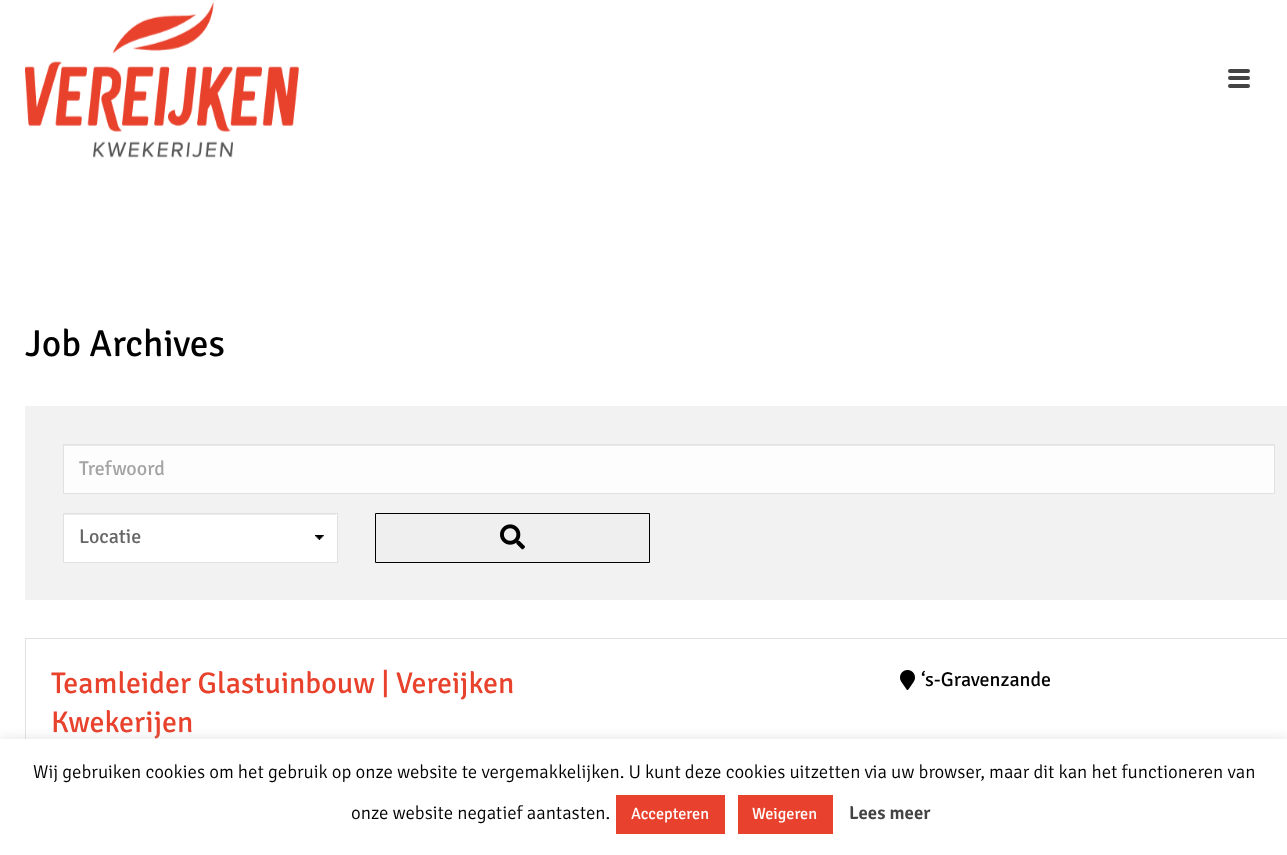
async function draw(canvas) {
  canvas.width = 1287;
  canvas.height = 855;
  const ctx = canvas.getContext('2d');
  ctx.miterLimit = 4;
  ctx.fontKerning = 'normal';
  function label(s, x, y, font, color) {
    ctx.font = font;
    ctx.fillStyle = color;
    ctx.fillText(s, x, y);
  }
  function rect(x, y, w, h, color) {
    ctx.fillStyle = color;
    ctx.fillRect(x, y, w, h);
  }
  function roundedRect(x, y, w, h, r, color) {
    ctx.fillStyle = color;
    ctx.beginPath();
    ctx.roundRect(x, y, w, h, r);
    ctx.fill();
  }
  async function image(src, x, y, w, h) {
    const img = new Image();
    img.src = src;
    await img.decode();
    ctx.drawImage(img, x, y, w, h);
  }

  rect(0, 0, 1287, 855, '#fff');
  await image('assets/img1.png', 25, 1, 274, 157);
  roundedRect(1228, 69, 22, 4, 2, '#444');
  roundedRect(1228, 76, 22, 4, 2, '#444');
  roundedRect(1228, 84, 22, 4, 2, '#444');
  label('Job Archives', 25, 356, '37.5px Signika', '#000');
  rect(25, 406, 1262, 194, '#f2f2f2');
  rect(64, 446, 1210, 47, '#fdfdfd');
  rect(64, 445, 1210, 1, '#eaeaea');
  ctx.strokeStyle = '#e1e1e1';
  ctx.strokeRect(63.5, 444.5, 1211, 49);
  label('Trefwoord', 79, 475, '20px Signika', '#a4a4a4');
  rect(64, 514, 273, 48, '#fff');
  await image('assets/img2.png', 315, 535, 9, 5);
  rect(64, 514, 272, 1, '#ececec');
  ctx.strokeRect(63.5, 513.5, 274, 49);
  label('Locatie', 79, 543, '20px Signika', '#666');
  ctx.fillStyle = '#efefef';
  ctx.beginPath();
  ctx.rect(375.5, 513.5, 274, 49);
  ctx.fill();
  ctx.strokeStyle = '#000';
  ctx.stroke();
  await image('assets/img3.png', 500, 524, 25, 26);
  ctx.strokeStyle = '#e1e1e1';
  ctx.strokeRect(25.5, 638.5, 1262, 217);
  label('Teamleider Glastuinbouw | Vereijken', 51, 693, '30px Signika', '#e8422d');
  label('Kwekerijen', 51, 732, '30px Signika', '#e8422d');
  await image('assets/img4.png', 900, 670, 15, 20);
  label('‘s-Gravenzande', 921, 686, '20px Signika', '#000');
  ctx.fillStyle = '#acabab4d';
  ctx.filter = 'blur(6px)';
  ctx.beginPath();
  ctx.rect(0, 738, 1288, 116);
  ctx.fill();
  ctx.filter = 'none';
  rect(0, 739, 1287, 116, '#fff');
  label('Wij gebruiken cookies om het gebruik op onze website te vergemakkelijken. U kunt deze cookies uitzetten via uw browser, maar dit kan het functioneren van', 33, 778, '300 18.75px Signika', '#000');
  label('onze website negatief aantasten.', 351, 819, '300 18.75px Signika', '#000');
  rect(616, 795, 109, 39, '#e8412d');
  label('Accepteren', 631, 819, '16.25px Signika', '#fff');
  rect(738, 795, 95, 39, '#e8412d');
  label('Weigeren', 752, 819, '16.25px Signika', '#fff');
  label('Lees meer', 849, 819, '600 18.75px Signika', '#444');
}

draw(document.querySelector('canvas'));
